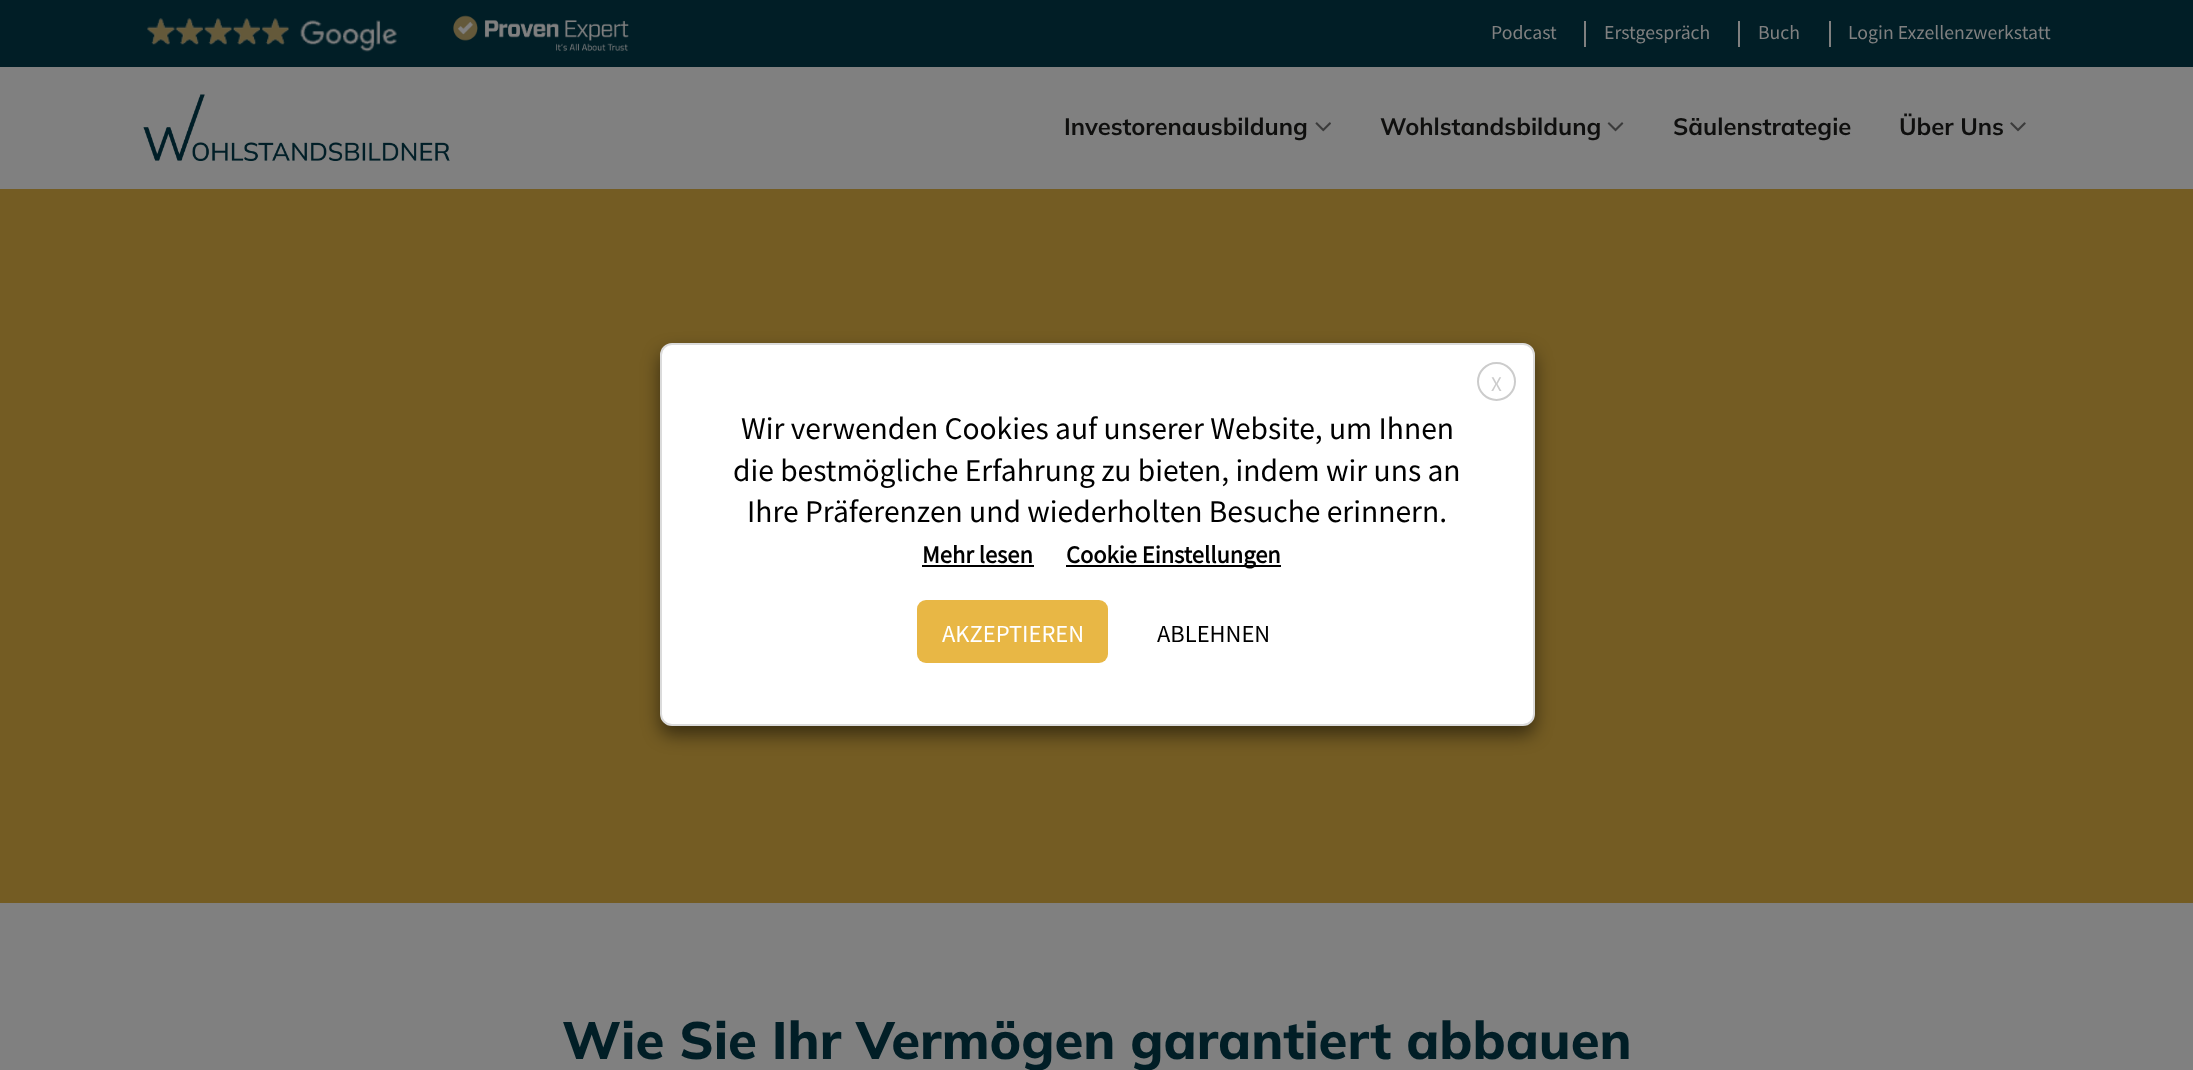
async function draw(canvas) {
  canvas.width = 2193;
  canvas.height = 1070;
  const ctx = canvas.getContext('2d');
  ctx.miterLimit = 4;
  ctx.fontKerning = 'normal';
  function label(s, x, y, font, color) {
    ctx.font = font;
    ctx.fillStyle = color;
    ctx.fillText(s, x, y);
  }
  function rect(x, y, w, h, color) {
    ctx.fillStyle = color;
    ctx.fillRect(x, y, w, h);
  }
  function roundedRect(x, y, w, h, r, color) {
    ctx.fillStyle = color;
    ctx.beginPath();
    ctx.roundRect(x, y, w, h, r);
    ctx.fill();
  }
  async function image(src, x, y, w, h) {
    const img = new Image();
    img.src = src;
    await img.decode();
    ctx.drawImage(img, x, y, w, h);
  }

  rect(0, 0, 2193, 1070, '#808080');
  rect(0, 0, 2193, 67, '#011e26');
  await image('assets/img1.png', 147, 18, 250, 34);
  await image('assets/img2.png', 453, 15, 176, 36);
  label('Podcast', 1491, 39, '19.75px Source Sans Pro', '#808080');
  rect(1584, 21, 2, 26, '#808080');
  label('Erstgespräch', 1604, 39, '19.75px Source Sans Pro', '#808080');
  rect(1738, 21, 2, 26, '#808080');
  label('Buch', 1758, 39, '19.75px Source Sans Pro', '#808080');
  rect(1829, 21, 2, 26, '#808080');
  label('Login Exzellenzwerkstatt', 1848, 39, '19.75px Source Sans Pro', '#808080');
  await image('assets/img3.png', 143, 94, 307, 67);
  label('Investorenausbildung', 1064, 135, 'bold 23.75px Mulish', '#0f0f0e');
  await image('assets/img4.png', 1315, 122, 16, 10);
  label('Wohlstandsbildung', 1380, 135, 'bold 23.75px Mulish', '#0f0f0e');
  await image('assets/img5.png', 1607, 122, 17, 10);
  label('Säulenstrategie', 1673, 135, 'bold 23.75px Mulish', '#0f0f0e');
  label('Über Uns', 1899, 135, 'bold 23.75px Mulish', '#0f0f0e');
  await image('assets/img6.png', 2010, 122, 16, 10);
  rect(0, 189, 2193, 714, '#745c23');
  label('Wie Sie Ihr Vermögen garantiert abbauen', 562, 1059, '800 52.5px Mulish', '#011e26');
  ctx.fillStyle = '#00000080';
  ctx.filter = 'blur(9px)';
  ctx.beginPath();
  ctx.roundRect(660, 352, 875, 383, 12);
  ctx.fill();
  ctx.filter = 'none';
  ctx.fillStyle = '#fff';
  ctx.beginPath();
  ctx.roundRect(661, 344, 873, 381, 11);
  ctx.fill();
  ctx.strokeStyle = '#dbdbdb';
  ctx.lineWidth = 2;
  ctx.stroke();
  ctx.beginPath();
  ctx.arc(1496.5, 381.5, 18.5, 0, 2 * Math.PI);
  ctx.strokeStyle = '#ccc';
  ctx.stroke();
  label('X', 1491, 391, '21px Source Sans Pro', '#ccc');
  label('Wir verwenden Cookies auf unserer Website, um Ihnen', 741, 439, '31.5px Source Sans Pro', '#000');
  label('die bestmögliche Erfahrung zu bieten, indem wir uns an', 733, 481, '31.5px Source Sans Pro', '#000');
  label('Ihre Präferenzen und wiederholten Besuche erinnern.', 747, 522, '31.5px Source Sans Pro', '#000');
  label('Mehr lesen', 922, 563, 'bold 24.5px Source Sans Pro', '#000');
  rect(922, 565, 112, 2, '#000');
  rect(1066, 565, 215, 2, '#000');
  label('Cookie Einstellungen', 1066, 563, 'bold 24.5px Source Sans Pro', '#000');
  roundedRect(917, 600, 191, 63, 9, '#e8b745');
  label('AKZEPTIEREN', 942, 642, '24.5px Source Sans Pro', '#fff');
  label('ABLEHNEN', 1157, 642, '24.5px Source Sans Pro', '#000');
}

draw(document.querySelector('canvas'));
